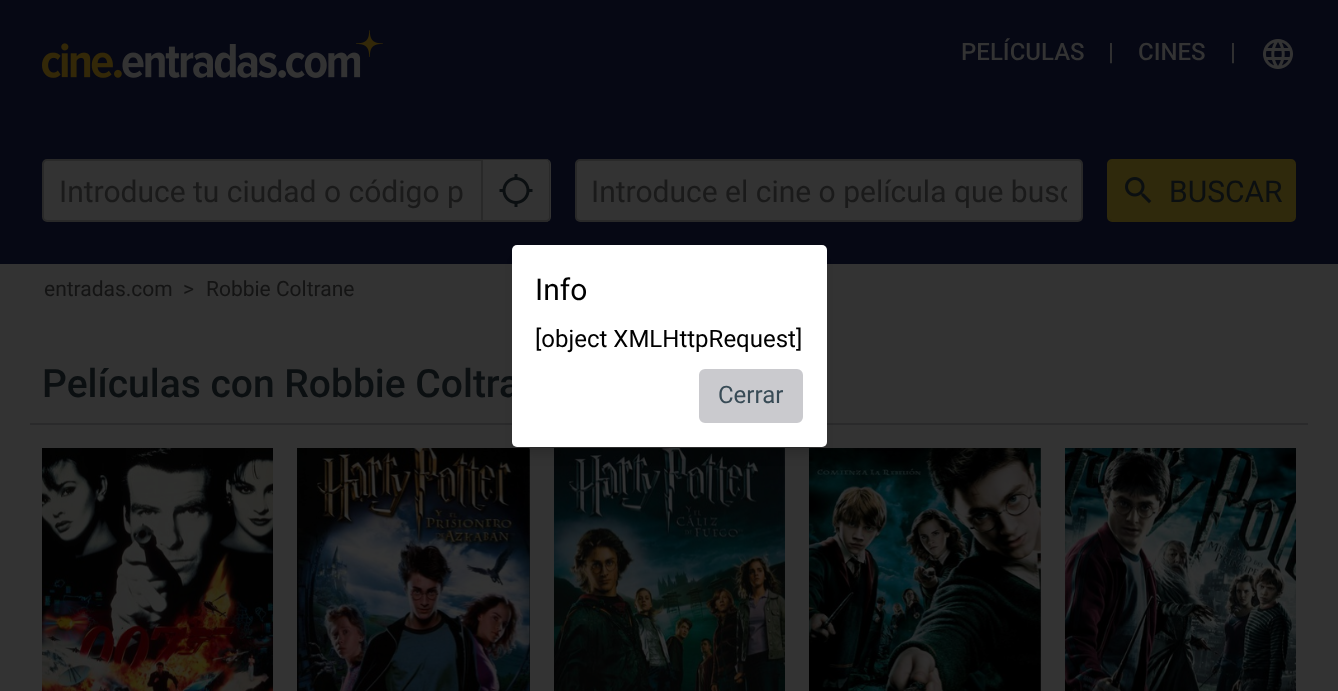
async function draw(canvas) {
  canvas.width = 1338;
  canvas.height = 691;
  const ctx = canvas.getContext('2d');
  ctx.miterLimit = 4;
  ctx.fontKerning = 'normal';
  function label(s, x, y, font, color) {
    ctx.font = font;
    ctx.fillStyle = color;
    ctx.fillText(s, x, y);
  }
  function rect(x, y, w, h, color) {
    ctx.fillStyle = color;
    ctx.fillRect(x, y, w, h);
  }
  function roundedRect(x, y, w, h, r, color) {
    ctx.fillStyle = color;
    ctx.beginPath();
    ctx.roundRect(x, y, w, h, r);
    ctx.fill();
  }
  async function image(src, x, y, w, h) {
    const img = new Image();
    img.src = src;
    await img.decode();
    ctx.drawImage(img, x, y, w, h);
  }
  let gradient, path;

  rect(0, 0, 1338, 691, '#333');
  rect(0, 0, 1338, 264, '#060814');
  await image('assets/img1.png', 42, 30, 341, 48);
  label('PELÍCULAS', 961, 60, '500 24px Roboto', '#333');
  label('|', 1108, 60, '500 24px Roboto', '#333');
  label('CINES', 1138, 60, '500 24px Roboto', '#333');
  label('|', 1230, 60, '500 24px Roboto', '#333');
  await image('assets/img2.png', 1263, 39, 30, 30);
  ctx.beginPath();
  ctx.roundRect(43, 160, 439, 61, [4, 0, 0, 4]);
  ctx.fill();
  ctx.strokeStyle = '#292929';
  ctx.lineWidth = 2;
  ctx.stroke();
  label('Introduce tu ciudad o código p', 59, 202, '30px Roboto', '#1a1a1a');
  ctx.fillStyle = '#333';
  ctx.beginPath();
  ctx.roundRect(483, 159, 68, 63, [0, 5, 5, 0]);
  ctx.fill();
  ctx.fillStyle = '#292929';
  path = new Path2D('M483 159H546C548 159 550 161 550 164V218C550 220 548 222 546 222H483ZM483 160H546C548 160 549 162 549 164V218C549 219 548 220 546 220H483Z');
  ctx.fill(path, 'evenodd');
  await image('assets/img3.png', 499, 174, 34, 33);
  ctx.fillStyle = '#333';
  ctx.beginPath();
  ctx.roundRect(576, 160, 506, 61, 4);
  ctx.fill();
  ctx.stroke();
  ctx.save();
  ctx.beginPath();
  ctx.rect(591, 173, 476, 36);
  ctx.clip();
  label('Introduce el cine o película que busc', 591, 202, '30px Roboto', '#1a1a1a');
  ctx.restore();
  ctx.fillStyle = '#2f290c';
  ctx.beginPath();
  ctx.roundRect(1108, 160, 187, 61, 4);
  ctx.fill();
  ctx.strokeStyle = '#2f290c';
  ctx.stroke();
  await image('assets/img4.png', 1125, 177, 27, 27);
  label('BUSCAR', 1169, 202, '30px Roboto', '#0b0f11');
  label('entradas.com', 44, 296, '21px Roboto', '#141414');
  label('>', 183, 296, '21px Roboto', '#141414');
  label('Robbie Coltrane', 206, 296, '21px Roboto', '#141414');
  rect(30, 423, 1278, 2, '#2a2a2b');
  label('Películas con Robbie Coltra', 42, 397, '500 39px Roboto', '#0b0f11');
  await image('assets/img5.png', 42, 448, 231, 243);
  gradient = ctx.createLinearGradient(272, 473, 554, 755);
  gradient.addColorStop(0, '#292729');
  gradient.addColorStop(1, '#030404');
  ctx.fillStyle = gradient;
  ctx.fillRect(529, 449, 1, 242);
  await image('assets/img6.png', 297, 448, 233, 243);
  await image('assets/img7.png', 554, 448, 231, 243);
  await image('assets/img8.png', 809, 448, 232, 243);
  await image('assets/img9.png', 1065, 448, 231, 243);
  ctx.fillStyle = '#00000033';
  ctx.filter = 'blur(7px)';
  ctx.beginPath();
  ctx.rect(519, 264, 300, 188);
  ctx.fill();
  ctx.filter = 'none';
  roundedRect(512, 245, 315, 202, 5, '#fff');
  label('Info', 535, 300, '30px Roboto', '#000');
  label('[object XMLHttpRequest]', 535, 347, '24px Roboto', '#000');
  ctx.fillStyle = '#cacace';
  ctx.beginPath();
  ctx.roundRect(700, 370, 102, 52, 5);
  ctx.fill();
  ctx.strokeStyle = '#cacace';
  ctx.stroke();
  label('Cerrar', 718, 403, '24px Roboto', '#384b56');
}

draw(document.querySelector('canvas'));
